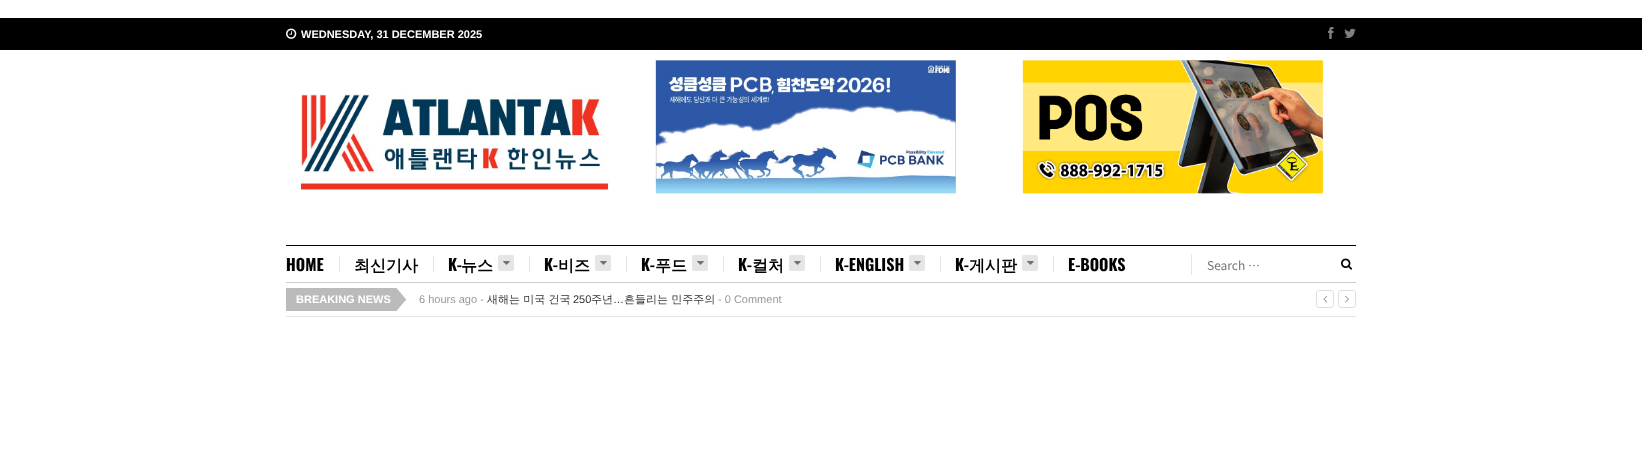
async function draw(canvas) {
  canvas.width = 1642;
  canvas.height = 458;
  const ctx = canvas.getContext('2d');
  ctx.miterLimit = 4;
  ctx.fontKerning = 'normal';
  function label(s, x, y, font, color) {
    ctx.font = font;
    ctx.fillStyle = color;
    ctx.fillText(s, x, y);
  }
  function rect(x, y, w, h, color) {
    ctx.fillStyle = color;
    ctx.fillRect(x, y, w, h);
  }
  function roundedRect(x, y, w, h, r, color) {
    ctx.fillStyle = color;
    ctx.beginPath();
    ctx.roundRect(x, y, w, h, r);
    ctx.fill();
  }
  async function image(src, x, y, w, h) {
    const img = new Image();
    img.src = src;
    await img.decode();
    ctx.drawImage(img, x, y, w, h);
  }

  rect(0, 0, 1642, 458, '#fff');
  rect(0, 18, 1642, 32, '#000');
  await image('assets/img1.png', 286, 28, 11, 11);
  label('WEDNESDAY, 31 DECEMBER 2025', 301, 38, 'bold 11px Liberation Sans', '#fff');
  await image('assets/img2.png', 1328, 27, 6, 12);
  await image('assets/img3.png', 1344, 28, 12, 10);
  await image('assets/img4.png', 299, 94, 311, 96);
  await image('assets/img5.png', 655, 60, 301, 134);
  await image('assets/img6.png', 1022, 60, 301, 134);
  rect(286, 245, 1070, 1, '#000');
  rect(286, 282, 1070, 1, '#ccc');
  rect(286, 256, 1, 16, '#e3e3e3');
  label('HOME', 286, 271, 'bold 16px Oswald', '#000');
  rect(339, 256, 1, 16, '#e3e3e3');
  label('최신기사', 354, 271, 'bold 16px WenQuanYi Zen Hei', '#000');
  rect(433, 256, 1, 16, '#e3e3e3');
  label('K-', 448, 271, 'bold 16px Oswald', '#000');
  label('뉴스', 461, 271, 'bold 16px WenQuanYi Zen Hei', '#000');
  roundedRect(498, 255, 16, 16, 2, '#e5e5e5');
  await image('assets/img7.png', 503, 261, 7, 4);
  rect(529, 256, 1, 16, '#e3e3e3');
  label('K-', 544, 271, 'bold 16px Oswald', '#000');
  label('비즈', 558, 271, 'bold 16px WenQuanYi Zen Hei', '#000');
  roundedRect(595, 255, 16, 16, 2, '#e5e5e5');
  await image('assets/img7.png', 600, 261, 7, 4);
  rect(626, 256, 1, 16, '#e3e3e3');
  label('K-', 641, 271, 'bold 16px Oswald', '#000');
  label('푸드', 655, 271, 'bold 16px WenQuanYi Zen Hei', '#000');
  roundedRect(692, 255, 16, 16, 2, '#e5e5e5');
  await image('assets/img7.png', 697, 261, 7, 4);
  rect(723, 256, 1, 16, '#e3e3e3');
  label('K-', 738, 271, 'bold 16px Oswald', '#000');
  label('컬처', 752, 271, 'bold 16px WenQuanYi Zen Hei', '#000');
  roundedRect(789, 255, 16, 16, 2, '#e5e5e5');
  await image('assets/img7.png', 794, 261, 7, 4);
  rect(820, 256, 1, 16, '#e3e3e3');
  label('K-ENGLISH', 835, 271, 'bold 16px Oswald', '#000');
  roundedRect(909, 255, 16, 16, 2, '#e5e5e5');
  await image('assets/img7.png', 914, 261, 7, 4);
  rect(940, 256, 1, 16, '#e3e3e3');
  label('K-', 955, 271, 'bold 16px Oswald', '#000');
  label('게시판', 969, 271, 'bold 16px WenQuanYi Zen Hei', '#000');
  roundedRect(1022, 255, 16, 16, 2, '#e5e5e5');
  await image('assets/img7.png', 1027, 261, 7, 4);
  rect(1053, 256, 1, 16, '#e3e3e3');
  label('E-BOOKS', 1068, 271, 'bold 16px Oswald', '#000');
  rect(1191, 254, 1, 21, '#e6e6e6');
  label('Search …', 1207, 270, '12px Noto Sans KR', '#757575');
  await image('assets/img8.png', 1341, 258, 12, 12);
  rect(286, 316, 1070, 1, '#e6e6e6');
  await image('assets/img9.png', 286, 288, 120, 23);
  label('BREAKING NEWS', 296, 303, 'bold 11px Liberation Sans', '#fff');
  label('6 hours ago -', 419, 303, '11px Liberation Sans', '#999');
  label('새해는 미국 건국', 487, 303, '500 11px WenQuanYi Zen Hei', '#333');
  label('250', 573, 303, '11px Liberation Sans', '#333');
  label('주년', 591, 303, '500 11px WenQuanYi Zen Hei', '#333');
  label('…', 613, 303, '11px Liberation Sans', '#333');
  label('흔들리는 민주주의', 624, 303, '500 11px WenQuanYi Zen Hei', '#333');
  label('- 0 Comment', 718, 303, '11px Liberation Sans', '#999');
  ctx.beginPath();
  ctx.roundRect(1316.5, 290.5, 17, 17, 2.5);
  ctx.strokeStyle = '#dfdfdf';
  ctx.stroke();
  await image('assets/img10.png', 1323, 295, 5, 8);
  ctx.beginPath();
  ctx.roundRect(1338.5, 290.5, 17, 17, 2.5);
  ctx.stroke();
  await image('assets/img11.png', 1345, 295, 4, 8);
}

draw(document.querySelector('canvas'));
